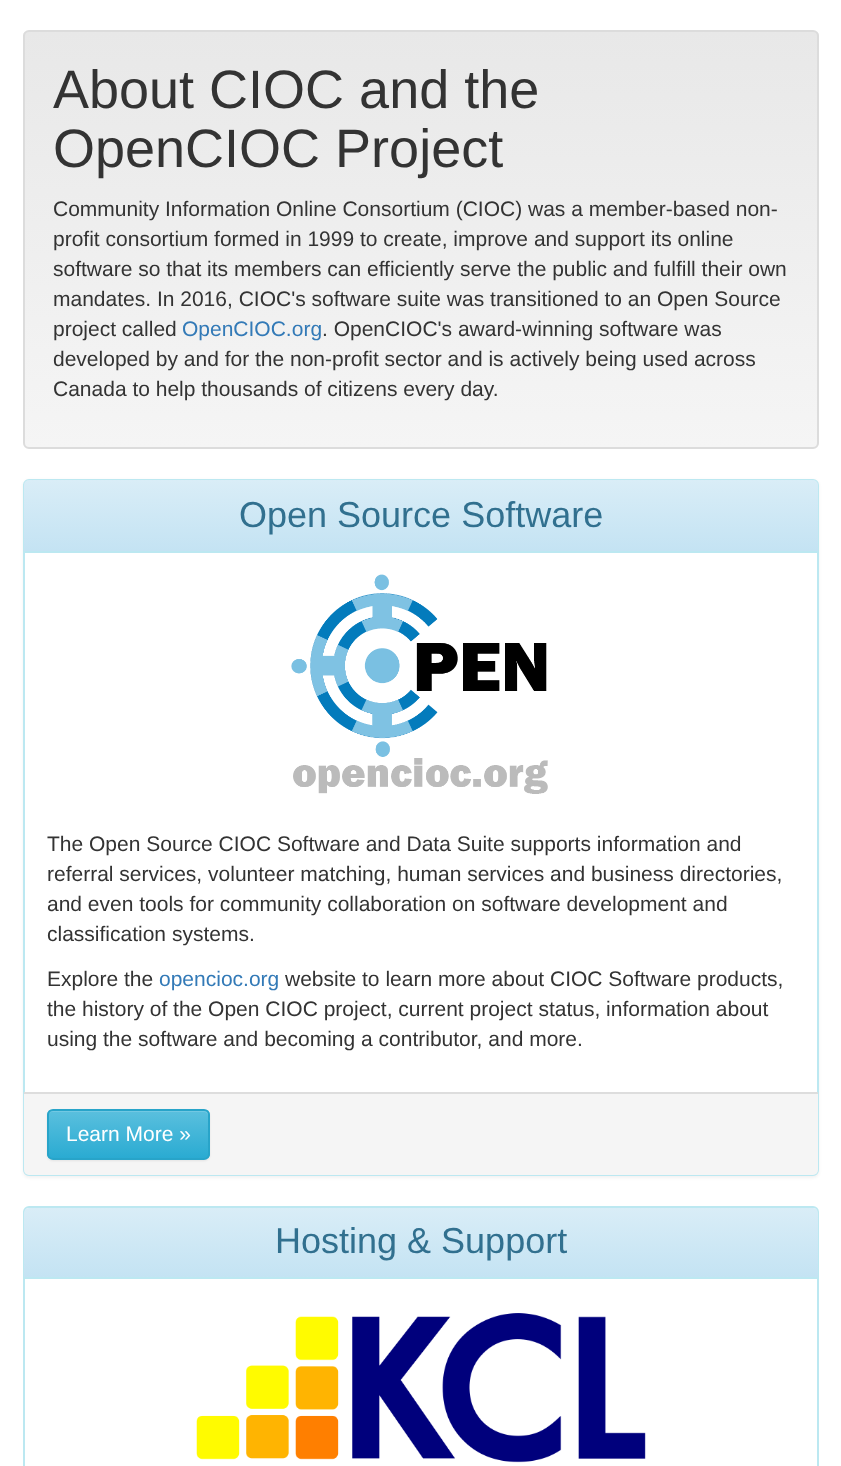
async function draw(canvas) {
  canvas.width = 841;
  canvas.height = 1466;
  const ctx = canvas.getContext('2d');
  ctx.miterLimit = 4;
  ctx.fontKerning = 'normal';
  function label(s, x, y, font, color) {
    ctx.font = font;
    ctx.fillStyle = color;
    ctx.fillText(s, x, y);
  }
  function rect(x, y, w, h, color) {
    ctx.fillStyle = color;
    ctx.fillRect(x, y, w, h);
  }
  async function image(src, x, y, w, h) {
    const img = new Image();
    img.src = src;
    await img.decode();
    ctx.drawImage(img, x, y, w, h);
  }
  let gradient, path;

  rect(0, 0, 841, 1466, '#fff');
  ctx.save();
  ctx.beginPath();
  ctx.roundRect(23, 30, 796, 419, 6);
  ctx.clip();
  gradient = ctx.createLinearGradient(421, 31, 421, 447);
  gradient.addColorStop(0, '#e8e8e8');
  gradient.addColorStop(1, '#f5f5f5');
  ctx.fillStyle = gradient;
  ctx.fillRect(23, 32, 796, 415);
  ctx.restore();
  ctx.beginPath();
  ctx.roundRect(24, 31, 794, 417, 5);
  ctx.strokeStyle = '#dcdcdc';
  ctx.lineWidth = 2;
  ctx.stroke();
  label('About CIOC and the', 53, 108, '54px Liberation Sans', '#333');
  label('OpenCIOC Project', 53, 167, '54px Liberation Sans', '#333');
  label('Community Information Online Consortium (CIOC) was a member-based non-', 53, 216, '21px Liberation Sans', '#333');
  label('profit consortium formed in 1999 to create, improve and support its online', 53, 246, '21px Liberation Sans', '#333');
  label('software so that its members can efficiently serve the public and fulfill their own', 53, 276, '21px Liberation Sans', '#333');
  label('mandates. In 2016, CIOC\'s software suite was transitioned to an Open Source', 53, 306, '21px Liberation Sans', '#333');
  label('project called', 53, 336, '21px Liberation Sans', '#333');
  label('OpenCIOC.org', 182, 336, '21px Liberation Sans', '#337ab7');
  label('. OpenCIOC\'s award-winning software was', 322, 336, '21px Liberation Sans', '#333');
  label('developed by and for the non-profit sector and is actively being used across', 53, 366, '21px Liberation Sans', '#333');
  label('Canada to help thousands of citizens every day.', 53, 396, '21px Liberation Sans', '#333');
  ctx.fillStyle = '#0000000d';
  ctx.filter = 'blur(1.5px)';
  ctx.beginPath();
  ctx.roundRect(23, 480, 796, 698, 6);
  ctx.fill();
  ctx.filter = 'none';
  ctx.fillStyle = '#fff';
  ctx.beginPath();
  ctx.roundRect(24, 480, 794, 695, 5);
  ctx.fill();
  ctx.strokeStyle = '#bce8f1';
  ctx.stroke();
  gradient = ctx.createLinearGradient(421, 480, 421, 551);
  gradient.addColorStop(0, '#d9edf7');
  gradient.addColorStop(1, '#c4e3f3');
  ctx.fillStyle = gradient;
  ctx.beginPath();
  ctx.roundRect(24, 480, 794, 71, [5, 5, 0, 0]);
  ctx.fill();
  rect(24, 551, 794, 2, '#bce8f1');
  label('Open Source Software', 239, 527, '36px Liberation Sans', '#31708f');
  await image('assets/img1.png', 291, 574, 257, 220);
  label('The Open Source CIOC Software and Data Suite supports information and', 47, 851, '21px Liberation Sans', '#333');
  label('referral services, volunteer matching, human services and business directories,', 47, 881, '21px Liberation Sans', '#333');
  label('and even tools for community collaboration on software development and', 47, 911, '21px Liberation Sans', '#333');
  label('classification systems.', 47, 941, '21px Liberation Sans', '#333');
  label('Explore the', 47, 986, '21px Liberation Sans', '#333');
  label('opencioc.org', 159, 986, '21px Liberation Sans', '#337ab7');
  label('website to learn more about CIOC Software products,', 285, 986, '21px Liberation Sans', '#333');
  label('the history of the Open CIOC project, current project status, information about', 47, 1016, '21px Liberation Sans', '#333');
  label('using the software and becoming a contributor, and more.', 47, 1046, '21px Liberation Sans', '#333');
  ctx.fillStyle = '#f5f5f5';
  ctx.beginPath();
  ctx.roundRect(24, 1092, 794, 83, [0, 0, 5, 5]);
  ctx.fill();
  rect(24, 1092, 794, 2, '#ddd');
  ctx.fillStyle = '#00000012';
  ctx.filter = 'blur(1px)';
  ctx.beginPath();
  ctx.roundRect(47, 1110, 163, 51, 6);
  ctx.fill();
  ctx.filter = 'none';
  ctx.save();
  ctx.beginPath();
  ctx.roundRect(47, 1109, 163, 51, 6);
  ctx.clip();
  gradient = ctx.createLinearGradient(128, 1110, 128, 1158);
  gradient.addColorStop(0, '#5bc0de');
  gradient.addColorStop(1, '#2aabd2');
  ctx.fillStyle = gradient;
  ctx.fillRect(47, 1110, 163, 48);
  ctx.restore();
  ctx.fillStyle = '#ffffff26';
  path = new Path2D('M52 1112H204C206 1112 208 1114 208 1116V1156C209 1155 209 1154 209 1153V1115C209 1112 207 1110 204 1110H53C50 1110 48 1112 48 1115V1116C48 1114 50 1112 52 1112Z');
  ctx.fill(path);
  ctx.beginPath();
  ctx.roundRect(48, 1110, 161, 49, 5);
  ctx.strokeStyle = '#28a4c9';
  ctx.stroke();
  label('Learn More »', 66, 1141, '21px Liberation Sans', '#fff');
  ctx.beginPath();
  ctx.roundRect(24, 1207, 794, 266, 5);
  ctx.strokeStyle = '#bce8f1';
  ctx.stroke();
  gradient = ctx.createLinearGradient(421, 1208, 421, 1277);
  gradient.addColorStop(0, '#d9edf7');
  gradient.addColorStop(1, '#c4e3f3');
  ctx.fillStyle = gradient;
  ctx.beginPath();
  ctx.roundRect(24, 1208, 794, 69, [5, 5, 0, 0]);
  ctx.fill();
  rect(24, 1277, 794, 2, '#bce8f1');
  label('Hosting & Support', 275, 1253, '36px Liberation Sans', '#31708f');
  await image('assets/img2.png', 196, 1313, 450, 150);
}

draw(document.querySelector('canvas'));
